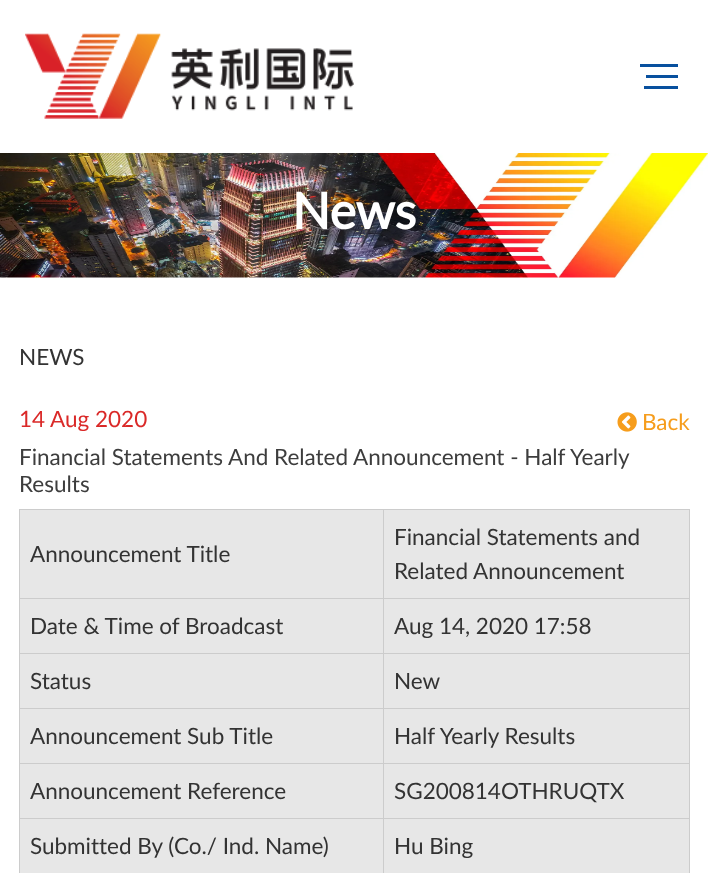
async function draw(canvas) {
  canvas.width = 708;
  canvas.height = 873;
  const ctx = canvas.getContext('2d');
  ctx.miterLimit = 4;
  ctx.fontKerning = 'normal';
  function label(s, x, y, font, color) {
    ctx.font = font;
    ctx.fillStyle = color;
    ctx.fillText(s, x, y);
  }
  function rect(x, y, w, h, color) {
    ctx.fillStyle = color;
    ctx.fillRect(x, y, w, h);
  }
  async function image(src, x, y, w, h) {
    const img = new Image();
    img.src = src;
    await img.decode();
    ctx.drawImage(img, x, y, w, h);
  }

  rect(0, 0, 708, 873, '#fff');
  await image('assets/img1.png', 25, 33, 329, 86);
  rect(640, 64, 38, 3, '#08509e');
  rect(646, 75, 32, 3, '#08509e');
  rect(644, 86, 34, 3, '#08509e');
  await image('assets/img2.png', 0, 153, 708, 125);
  label('News', 292, 229, 'bold 50px Lato', '#fff');
  label('NEWS', 19, 365, '22.5px Lato', '#333');
  label('14 Aug 2020', 19, 427, '22.5px Lato', '#da2928');
  await image('assets/img3.png', 617, 412, 20, 20);
  label('Back', 642, 430, '22.5px Lato', '#f69d1c');
  label('Financial Statements And Related Announcement - Half Yearly', 19, 465, '22.5px Lato', '#3d3d3d');
  label('Results', 19, 492, '22.5px Lato', '#3d3d3d');
  rect(19, 509, 671, 1, '#ccc');
  rect(689, 509, 1, 364, '#ccc');
  rect(19, 509, 1, 364, '#ccc');
  rect(20, 510, 363, 88, '#e7e7e7');
  label('Announcement Title', 30, 562, '22.5px Lato', '#333');
  rect(384, 510, 305, 88, '#e7e7e7');
  rect(383, 598, 307, 1, '#ccc');
  rect(383, 653, 307, 1, '#ccc');
  rect(383, 708, 307, 1, '#ccc');
  rect(383, 763, 307, 1, '#ccc');
  rect(383, 818, 307, 1, '#ccc');
  rect(383, 818, 1, 55, '#ccc');
  rect(19, 818, 365, 1, '#ccc');
  rect(383, 763, 1, 56, '#ccc');
  rect(19, 763, 365, 1, '#ccc');
  rect(383, 708, 1, 56, '#ccc');
  rect(19, 708, 365, 1, '#ccc');
  rect(383, 653, 1, 56, '#ccc');
  rect(19, 653, 365, 1, '#ccc');
  rect(383, 598, 1, 56, '#ccc');
  rect(19, 598, 365, 1, '#ccc');
  rect(383, 509, 1, 90, '#ccc');
  label('Financial Statements and', 394, 545, '22.5px Lato', '#333');
  label('Related Announcement', 394, 579, '22.5px Lato', '#333');
  rect(20, 599, 363, 54, '#e7e7e7');
  label('Date & Time of Broadcast', 30, 634, '22.5px Lato', '#333');
  rect(384, 599, 305, 54, '#e7e7e7');
  label('Aug 14, 2020 17:58', 394, 634, '22.5px Lato', '#333');
  rect(20, 654, 363, 54, '#e7e7e7');
  label('Status', 30, 689, '22.5px Lato', '#333');
  rect(384, 654, 305, 54, '#e7e7e7');
  label('New', 394, 689, '22.5px Lato', '#333');
  rect(20, 709, 363, 54, '#e7e7e7');
  label('Announcement Sub Title', 30, 744, '22.5px Lato', '#333');
  rect(384, 709, 305, 54, '#e7e7e7');
  label('Half Yearly Results', 394, 744, '22.5px Lato', '#333');
  rect(20, 764, 363, 54, '#e7e7e7');
  label('Announcement Reference', 30, 799, '22.5px Lato', '#333');
  rect(384, 764, 305, 54, '#e7e7e7');
  label('SG200814OTHRUQTX', 394, 799, '22.5px Lato', '#333');
  rect(20, 819, 363, 54, '#e7e7e7');
  label('Submitted By (Co./ Ind. Name)', 30, 854, '22.5px Lato', '#333');
  rect(384, 819, 305, 54, '#e7e7e7');
  label('Hu Bing', 394, 854, '22.5px Lato', '#333');
}

draw(document.querySelector('canvas'));
